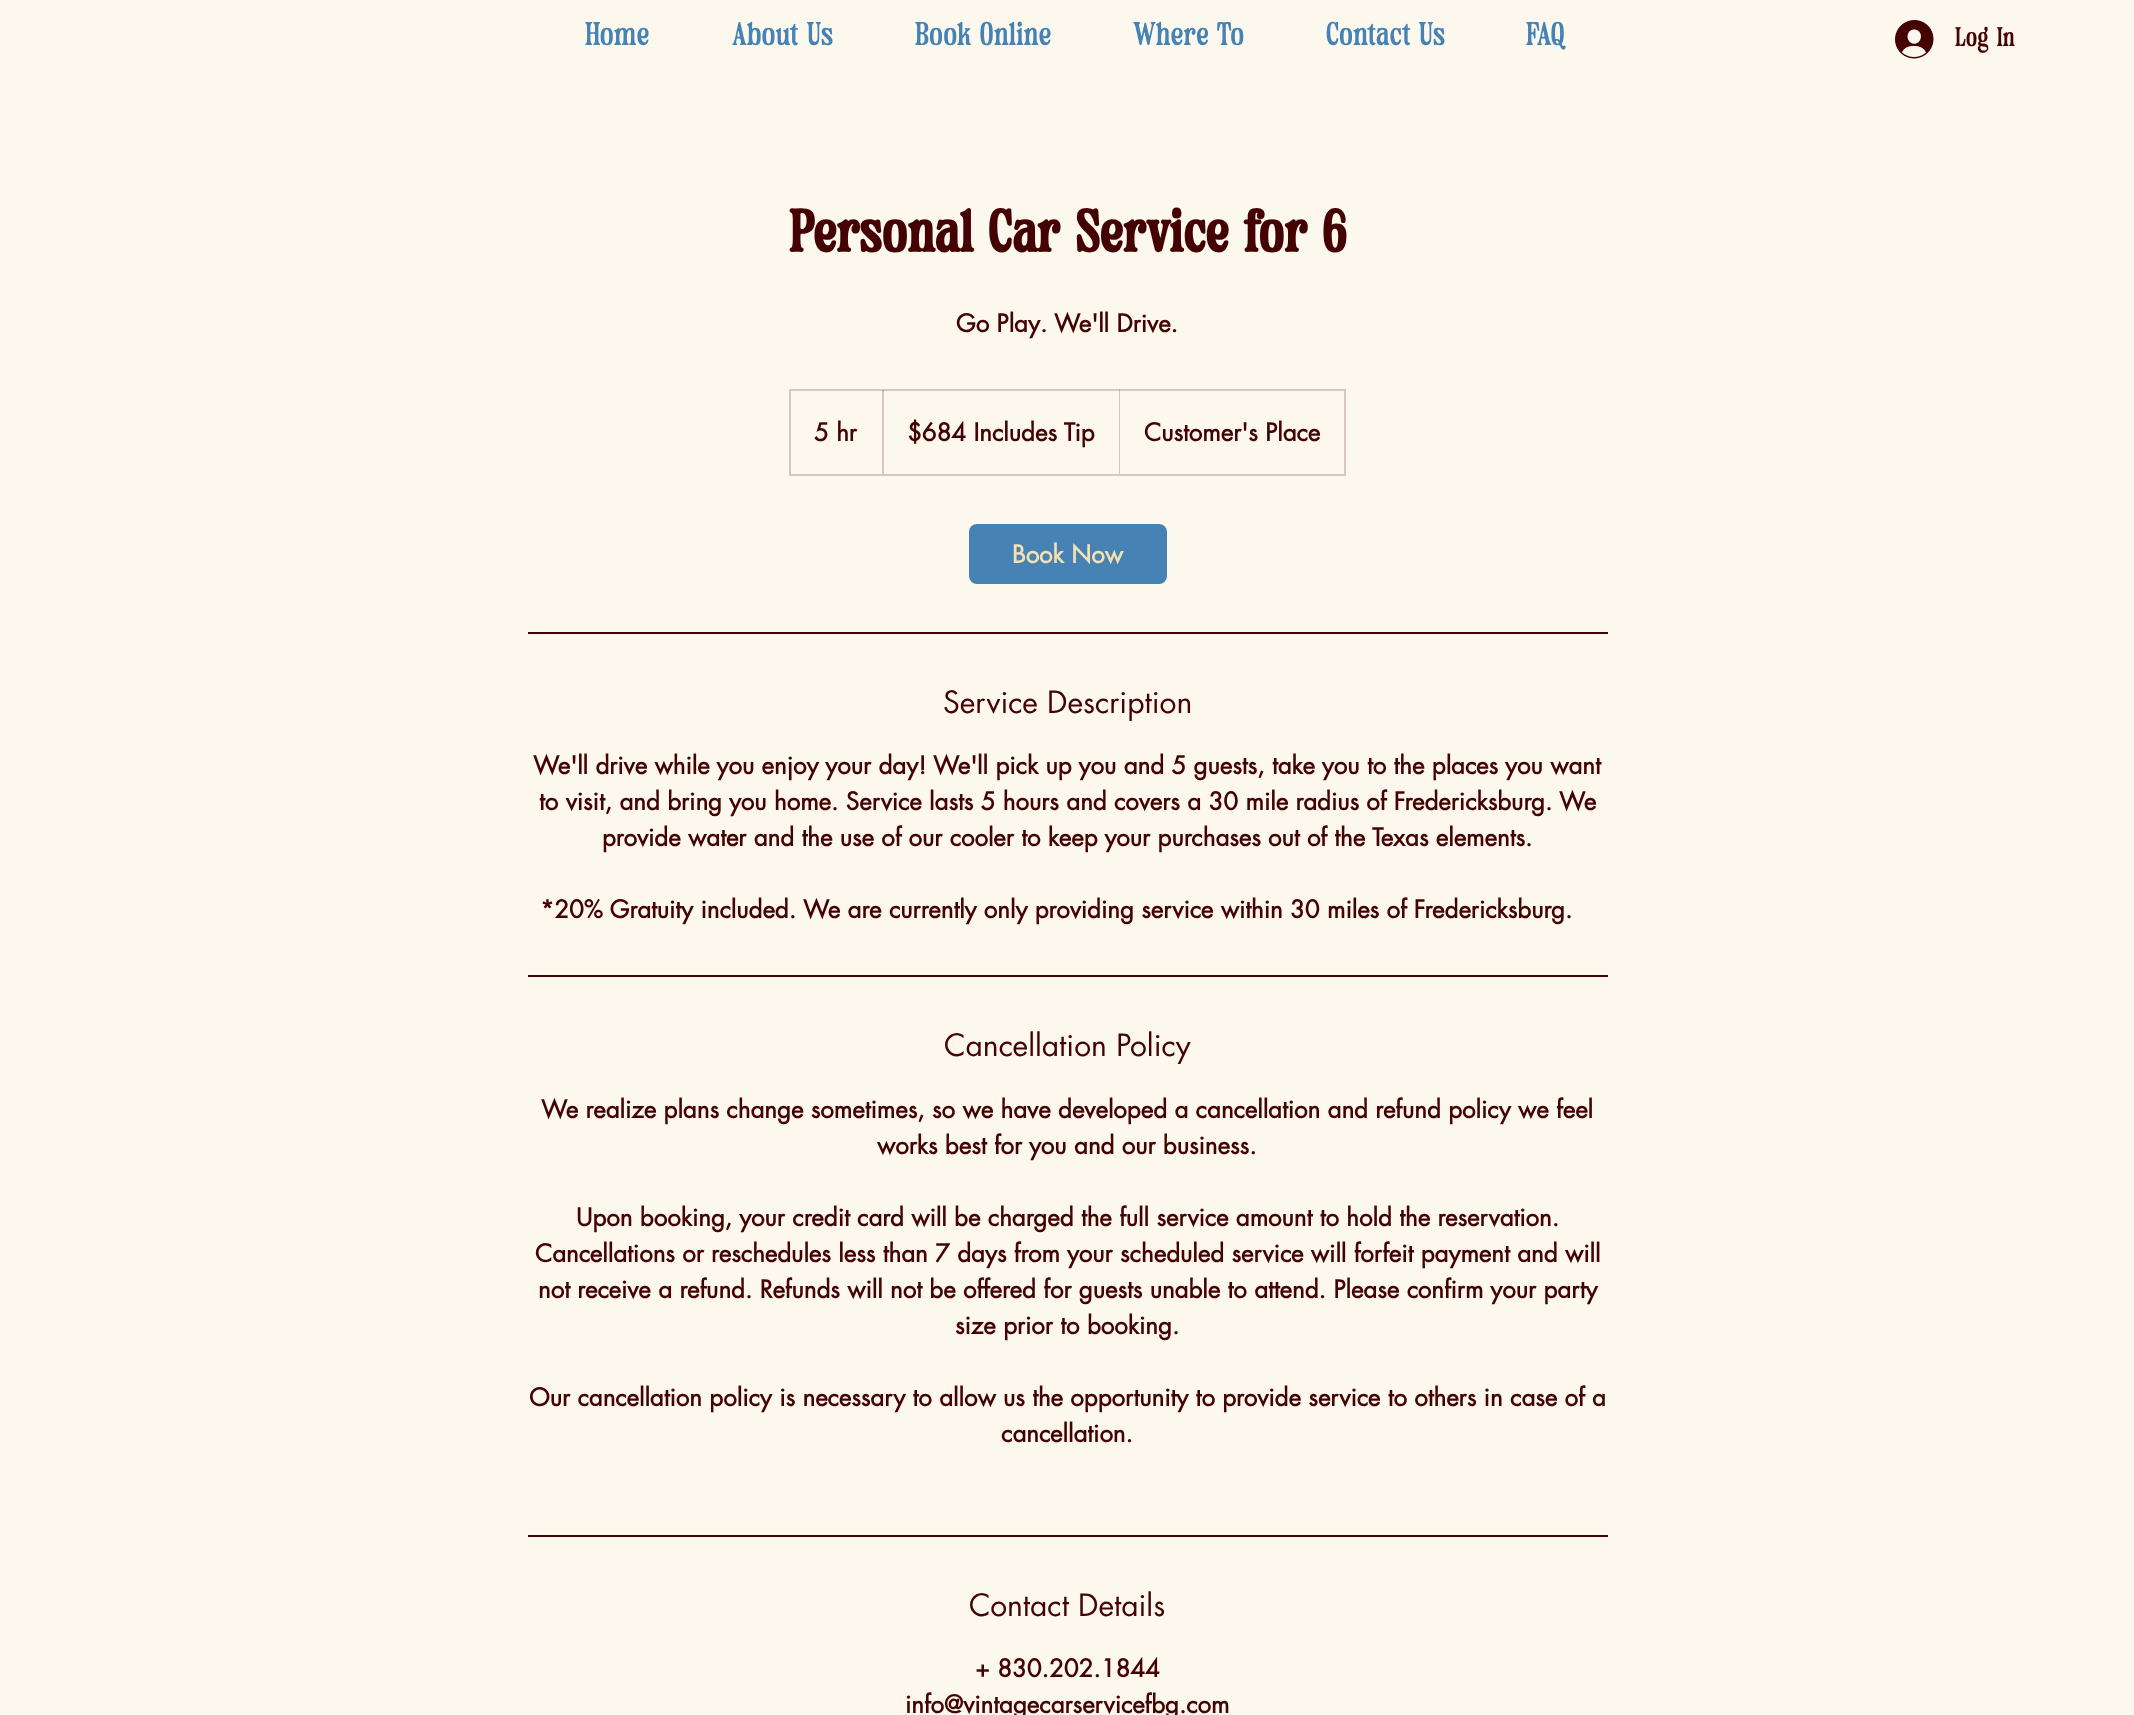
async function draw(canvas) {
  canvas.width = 2134;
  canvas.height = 1715;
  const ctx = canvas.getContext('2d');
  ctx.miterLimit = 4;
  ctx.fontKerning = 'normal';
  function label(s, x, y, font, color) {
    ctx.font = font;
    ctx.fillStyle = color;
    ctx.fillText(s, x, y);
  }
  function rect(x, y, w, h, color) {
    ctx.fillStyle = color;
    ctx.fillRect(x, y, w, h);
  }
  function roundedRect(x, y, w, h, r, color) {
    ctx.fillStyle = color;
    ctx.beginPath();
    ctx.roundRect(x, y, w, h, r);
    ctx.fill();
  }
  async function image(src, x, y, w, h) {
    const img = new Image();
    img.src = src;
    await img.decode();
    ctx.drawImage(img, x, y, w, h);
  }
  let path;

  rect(0, 0, 2134, 1715, '#fcf8ed');
  label('Home', 585, 45, '33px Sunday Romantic', '#4682b4');
  label('About Us', 732, 45, '33px Sunday Romantic', '#4682b4');
  label('Book Online', 915, 45, '33px Sunday Romantic', '#4682b4');
  label('Where To', 1133, 45, '33px Sunday Romantic', '#4682b4');
  label('Contact Us', 1326, 45, '33px Sunday Romantic', '#4682b4');
  label('FAQ', 1526, 45, '33px Sunday Romantic', '#4682b4');
  await image('assets/img1.png', 1895, 20, 39, 39);
  label('Log In', 1955, 46, '27px Sunday Romantic', '#440202');
  label('Personal Car Service for 6', 789, 252, 'bold 60px Sunday Romantic', '#440202');
  label('Go Play.', 956, 332, 'bold 24px futura', '#440202');
  label('We\'ll Drive.', 1054, 332, 'bold 24px futura', '#440202');
  ctx.strokeStyle = '#d7c7be';
  ctx.lineWidth = 2;
  ctx.strokeRect(790, 390, 555, 85);
  label('5 hr', 814, 441, 'bold 24px futura', '#440202');
  ctx.save();
  ctx.beginPath();
  ctx.rect(791, 390, 553, 84);
  ctx.clip();
  ctx.fillStyle = '#44020233';
  path = new Path2D('M882 474V388L884 390V474Z');
  ctx.fill(path);
  ctx.restore();
  label('$684 Includes Tip', 907, 441, 'bold 24px futura', '#440202');
  ctx.fillStyle = '#44020233';
  path = new Path2D('M1119 474V388L1120 390V474Z');
  ctx.fill(path);
  label('Customer\'s Place', 1144, 441, 'bold 24px futura', '#440202');
  roundedRect(969, 524, 198, 60, 8, '#4682b4');
  label('Book Now', 1012, 563, 'bold 24px futura', '#f3e0b3');
  rect(528, 632, 1080, 2, '#440202');
  label('Service Description', 943, 713, '30px futura', '#440202');
  label('We\'ll drive while you enjoy your day! We\'ll pick up you and 5 guests, take you to the places you want', 533, 774, 'bold 24px futura', '#440202');
  label('to visit, and bring you home. Service lasts 5 hours and covers a 30 mile radius of Fredericksburg. We', 539, 810, 'bold 24px futura', '#440202');
  label('provide water and the use of our cooler to keep your purchases out of the Texas elements.', 602, 846, 'bold 24px futura', '#440202');
  label('*20% Gratuity included.', 540, 918, 'bold 24px futura', '#440202');
  label('We are currently only providing service within 30 miles of Fredericksburg.', 803, 918, 'bold 24px futura', '#440202');
  rect(528, 975, 1080, 2, '#440202');
  label('Cancellation Policy', 944, 1056, '30px futura', '#440202');
  label('We realize plans change sometimes, so we have developed a cancellation and refund policy we feel', 541, 1118, 'bold 24px futura', '#440202');
  label('works best for you and our business.', 877, 1154, 'bold 24px futura', '#440202');
  label('Upon booking, your credit card will be charged the full service amount to hold the reservation.', 576, 1226, 'bold 24px futura', '#440202');
  label('Cancellations or reschedules less than 7 days from your scheduled service will forfeit payment and will', 535, 1262, 'bold 24px futura', '#440202');
  label('not receive a refund. Refunds will not be offered for guests unable to attend. Please confirm your party', 538, 1298, 'bold 24px futura', '#440202');
  label('size prior to booking.', 955, 1334, 'bold 24px futura', '#440202');
  label('Our cancellation policy is necessary to allow us the opportunity to provide service to others in case of a', 529, 1406, 'bold 24px futura', '#440202');
  label('cancellation.', 1001, 1442, 'bold 24px futura', '#440202');
  rect(528, 1535, 1080, 2, '#440202');
  label('Contact Details', 969, 1616, '30px futura', '#440202');
  label('+ 830.202.1844', 975, 1677, 'bold 24px futura', '#440202');
  label('info@vintagecarservicefbg.com', 905, 1713, 'bold 24px futura', '#440202');
}

draw(document.querySelector('canvas'));
